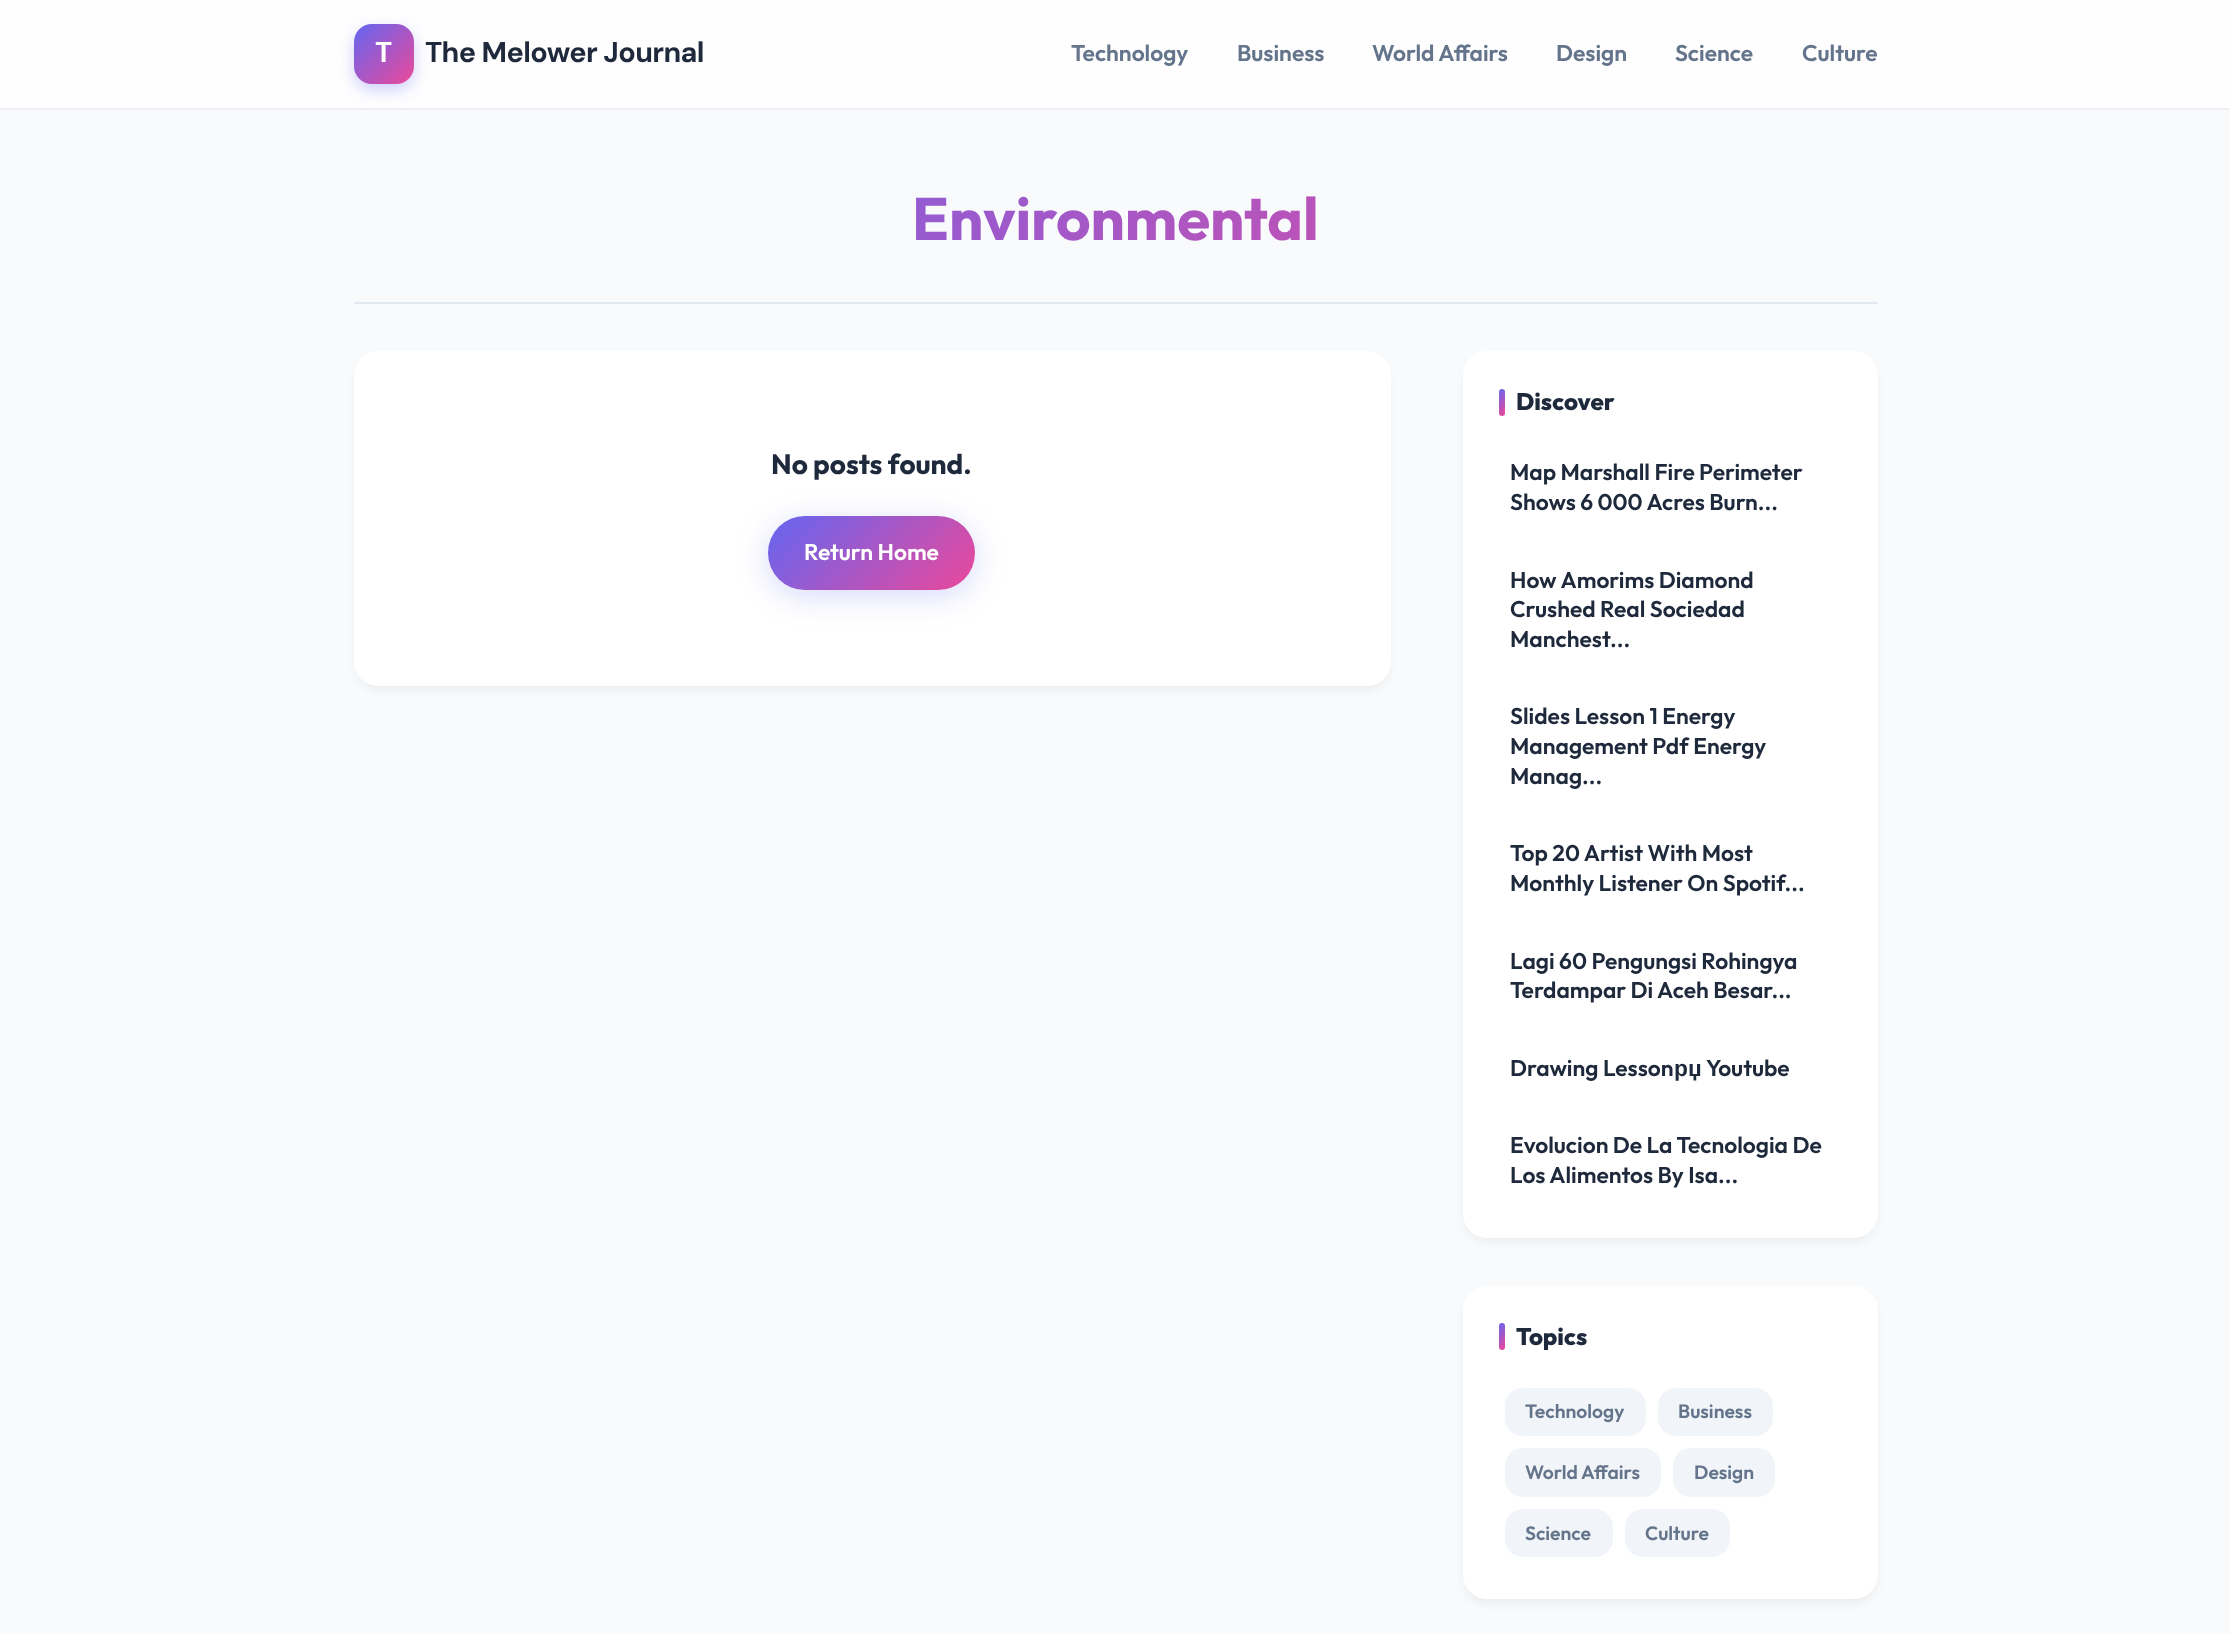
async function draw(canvas) {
  canvas.width = 2230;
  canvas.height = 1634;
  const ctx = canvas.getContext('2d');
  ctx.miterLimit = 4;
  ctx.fontKerning = 'normal';
  function label(s, x, y, font, color) {
    ctx.font = font;
    ctx.fillStyle = color;
    ctx.fillText(s, x, y);
  }
  function rect(x, y, w, h, color) {
    ctx.fillStyle = color;
    ctx.fillRect(x, y, w, h);
  }
  function roundedRect(x, y, w, h, r, color) {
    ctx.fillStyle = color;
    ctx.beginPath();
    ctx.roundRect(x, y, w, h, r);
    ctx.fill();
  }
  let gradient;

  rect(0, 0, 2230, 1634, '#f8fafc');
  rect(0, 0, 2230, 108, '#fefeff');
  rect(0, 108, 2230, 2, '#edf1f6');
  ctx.fillStyle = '#6366f14d';
  ctx.filter = 'blur(7.5px)';
  ctx.beginPath();
  ctx.roundRect(354, 30, 60, 60, 18);
  ctx.fill();
  ctx.filter = 'none';
  gradient = ctx.createLinearGradient(354, 24, 414, 84);
  gradient.addColorStop(0, '#6366f1');
  gradient.addColorStop(1, '#ec4899');
  ctx.fillStyle = gradient;
  ctx.beginPath();
  ctx.roundRect(354, 24, 60, 60, 18);
  ctx.fill();
  label('T', 375, 62, 'bold 28.75px DM Sans', '#fff');
  ctx.letterSpacing = '-0.6px';
  label('The Melower Journal', 425, 62, 'bold 28.75px DM Sans', '#1e293b');
  ctx.letterSpacing = '0px';
  label('Technology', 1071, 61, '600 22.75px Outfit', '#64748b');
  label('Business', 1237, 61, '600 22.75px Outfit', '#64748b');
  label('World Affairs', 1372, 61, '600 22.75px Outfit', '#64748b');
  label('Design', 1556, 61, '600 22.75px Outfit', '#64748b');
  label('Science', 1675, 61, '600 22.75px Outfit', '#64748b');
  label('Culture', 1802, 61, '600 22.75px Outfit', '#64748b');
  rect(354, 302, 1524, 2, '#e2e8f0');
  ctx.font = 'bold 60px Outfit';
  gradient = ctx.createLinearGradient(716, -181, 1514, 617);
  gradient.addColorStop(0, '#6366f1');
  gradient.addColorStop(1, '#ec4899');
  ctx.fillStyle = gradient;
  ctx.fillText('Environmental', 912, 240);
  ctx.fillStyle = '#0000000d';
  ctx.filter = 'blur(4.5px)';
  ctx.beginPath();
  ctx.roundRect(356, 359, 1033, 331, 23);
  ctx.fill();
  ctx.filter = 'none';
  roundedRect(354, 351, 1037, 335, 24, '#fff');
  label('No posts found.', 771, 474, 'bold 28px Outfit', '#1e293b');
  ctx.fillStyle = '#6366f140';
  ctx.filter = 'blur(15px)';
  ctx.beginPath();
  ctx.roundRect(768, 522, 207, 74, 37);
  ctx.fill();
  ctx.filter = 'none';
  gradient = ctx.createLinearGradient(801, 483, 942, 623);
  gradient.addColorStop(0, '#6366f1');
  gradient.addColorStop(1, '#ec4899');
  ctx.fillStyle = gradient;
  ctx.beginPath();
  ctx.roundRect(768, 516, 207, 74, 37);
  ctx.fill();
  label('Return Home', 804, 560, '600 22.75px Outfit', '#fff');
  ctx.fillStyle = '#0000000d';
  ctx.filter = 'blur(4.5px)';
  ctx.beginPath();
  ctx.roundRect(1464, 359, 413, 883, 23);
  ctx.fill();
  ctx.filter = 'none';
  roundedRect(1463, 351, 415, 887, 24, '#fff');
  gradient = ctx.createLinearGradient(1493, 394, 1510, 410);
  gradient.addColorStop(0, '#6366f1');
  gradient.addColorStop(1, '#ec4899');
  ctx.fillStyle = gradient;
  ctx.beginPath();
  ctx.roundRect(1499, 389, 6, 27, 3);
  ctx.fill();
  label('Discover', 1516, 410, '800 24px Outfit', '#1e293b');
  label('Map Marshall Fire Perimeter', 1510, 480, '600 22.75px Outfit', '#1e293b');
  label('Shows 6 000 Acres Burn...', 1510, 510, '600 22.75px Outfit', '#1e293b');
  label('How Amorims Diamond', 1510, 588, '600 22.75px Outfit', '#1e293b');
  label('Crushed Real Sociedad', 1510, 617, '600 22.75px Outfit', '#1e293b');
  label('Manchest...', 1510, 647, '600 22.75px Outfit', '#1e293b');
  label('Slides Lesson 1 Energy', 1510, 724, '600 22.75px Outfit', '#1e293b');
  label('Management Pdf Energy', 1510, 754, '600 22.75px Outfit', '#1e293b');
  label('Manag...', 1510, 784, '600 22.75px Outfit', '#1e293b');
  label('Top 20 Artist With Most', 1510, 861, '600 22.75px Outfit', '#1e293b');
  label('Monthly Listener On Spotif...', 1510, 891, '600 22.75px Outfit', '#1e293b');
  label('Lagi 60 Pengungsi Rohingya', 1510, 969, '600 22.75px Outfit', '#1e293b');
  label('Terdampar Di Aceh Besar...', 1510, 998, '600 22.75px Outfit', '#1e293b');
  label('Drawing Lesson', 1510, 1076, '600 22.75px Outfit', '#1e293b');
  label('рџ', 1674, 1076, 'bold 22.75px Liberation Sans', '#1e293b');
  label('Youtube', 1706, 1076, '600 22.75px Outfit', '#1e293b');
  label('Evolucion De La Tecnologia De', 1510, 1153, '600 22.75px Outfit', '#1e293b');
  label('Los Alimentos By Isa...', 1510, 1183, '600 22.75px Outfit', '#1e293b');
  ctx.fillStyle = '#0000000d';
  ctx.filter = 'blur(4.5px)';
  ctx.beginPath();
  ctx.roundRect(1464, 1293, 413, 311, 23);
  ctx.fill();
  ctx.filter = 'none';
  roundedRect(1463, 1286, 415, 313, 24, '#fff');
  gradient = ctx.createLinearGradient(1493, 1328, 1510, 1345);
  gradient.addColorStop(0, '#6366f1');
  gradient.addColorStop(1, '#ec4899');
  ctx.fillStyle = gradient;
  ctx.beginPath();
  ctx.roundRect(1499, 1323, 6, 27, 3);
  ctx.fill();
  label('Topics', 1516, 1345, '800 24px Outfit', '#1e293b');
  roundedRect(1505, 1388, 141, 48, 18, '#f1f5f9');
  label('Technology', 1525, 1418, '600 19.25px Outfit', '#64748b');
  roundedRect(1658, 1388, 115, 48, 18, '#f1f5f9');
  label('Business', 1678, 1418, '600 19.25px Outfit', '#64748b');
  roundedRect(1505, 1448, 156, 49, 18, '#f1f5f9');
  label('World Affairs', 1525, 1479, '600 19.25px Outfit', '#64748b');
  roundedRect(1673, 1448, 102, 49, 18, '#f1f5f9');
  label('Design', 1694, 1479, '600 19.25px Outfit', '#64748b');
  roundedRect(1505, 1509, 108, 48, 18, '#f1f5f9');
  label('Science', 1525, 1540, '600 19.25px Outfit', '#64748b');
  roundedRect(1625, 1509, 105, 48, 18, '#f1f5f9');
  label('Culture', 1645, 1540, '600 19.25px Outfit', '#64748b');
}

draw(document.querySelector('canvas'));
